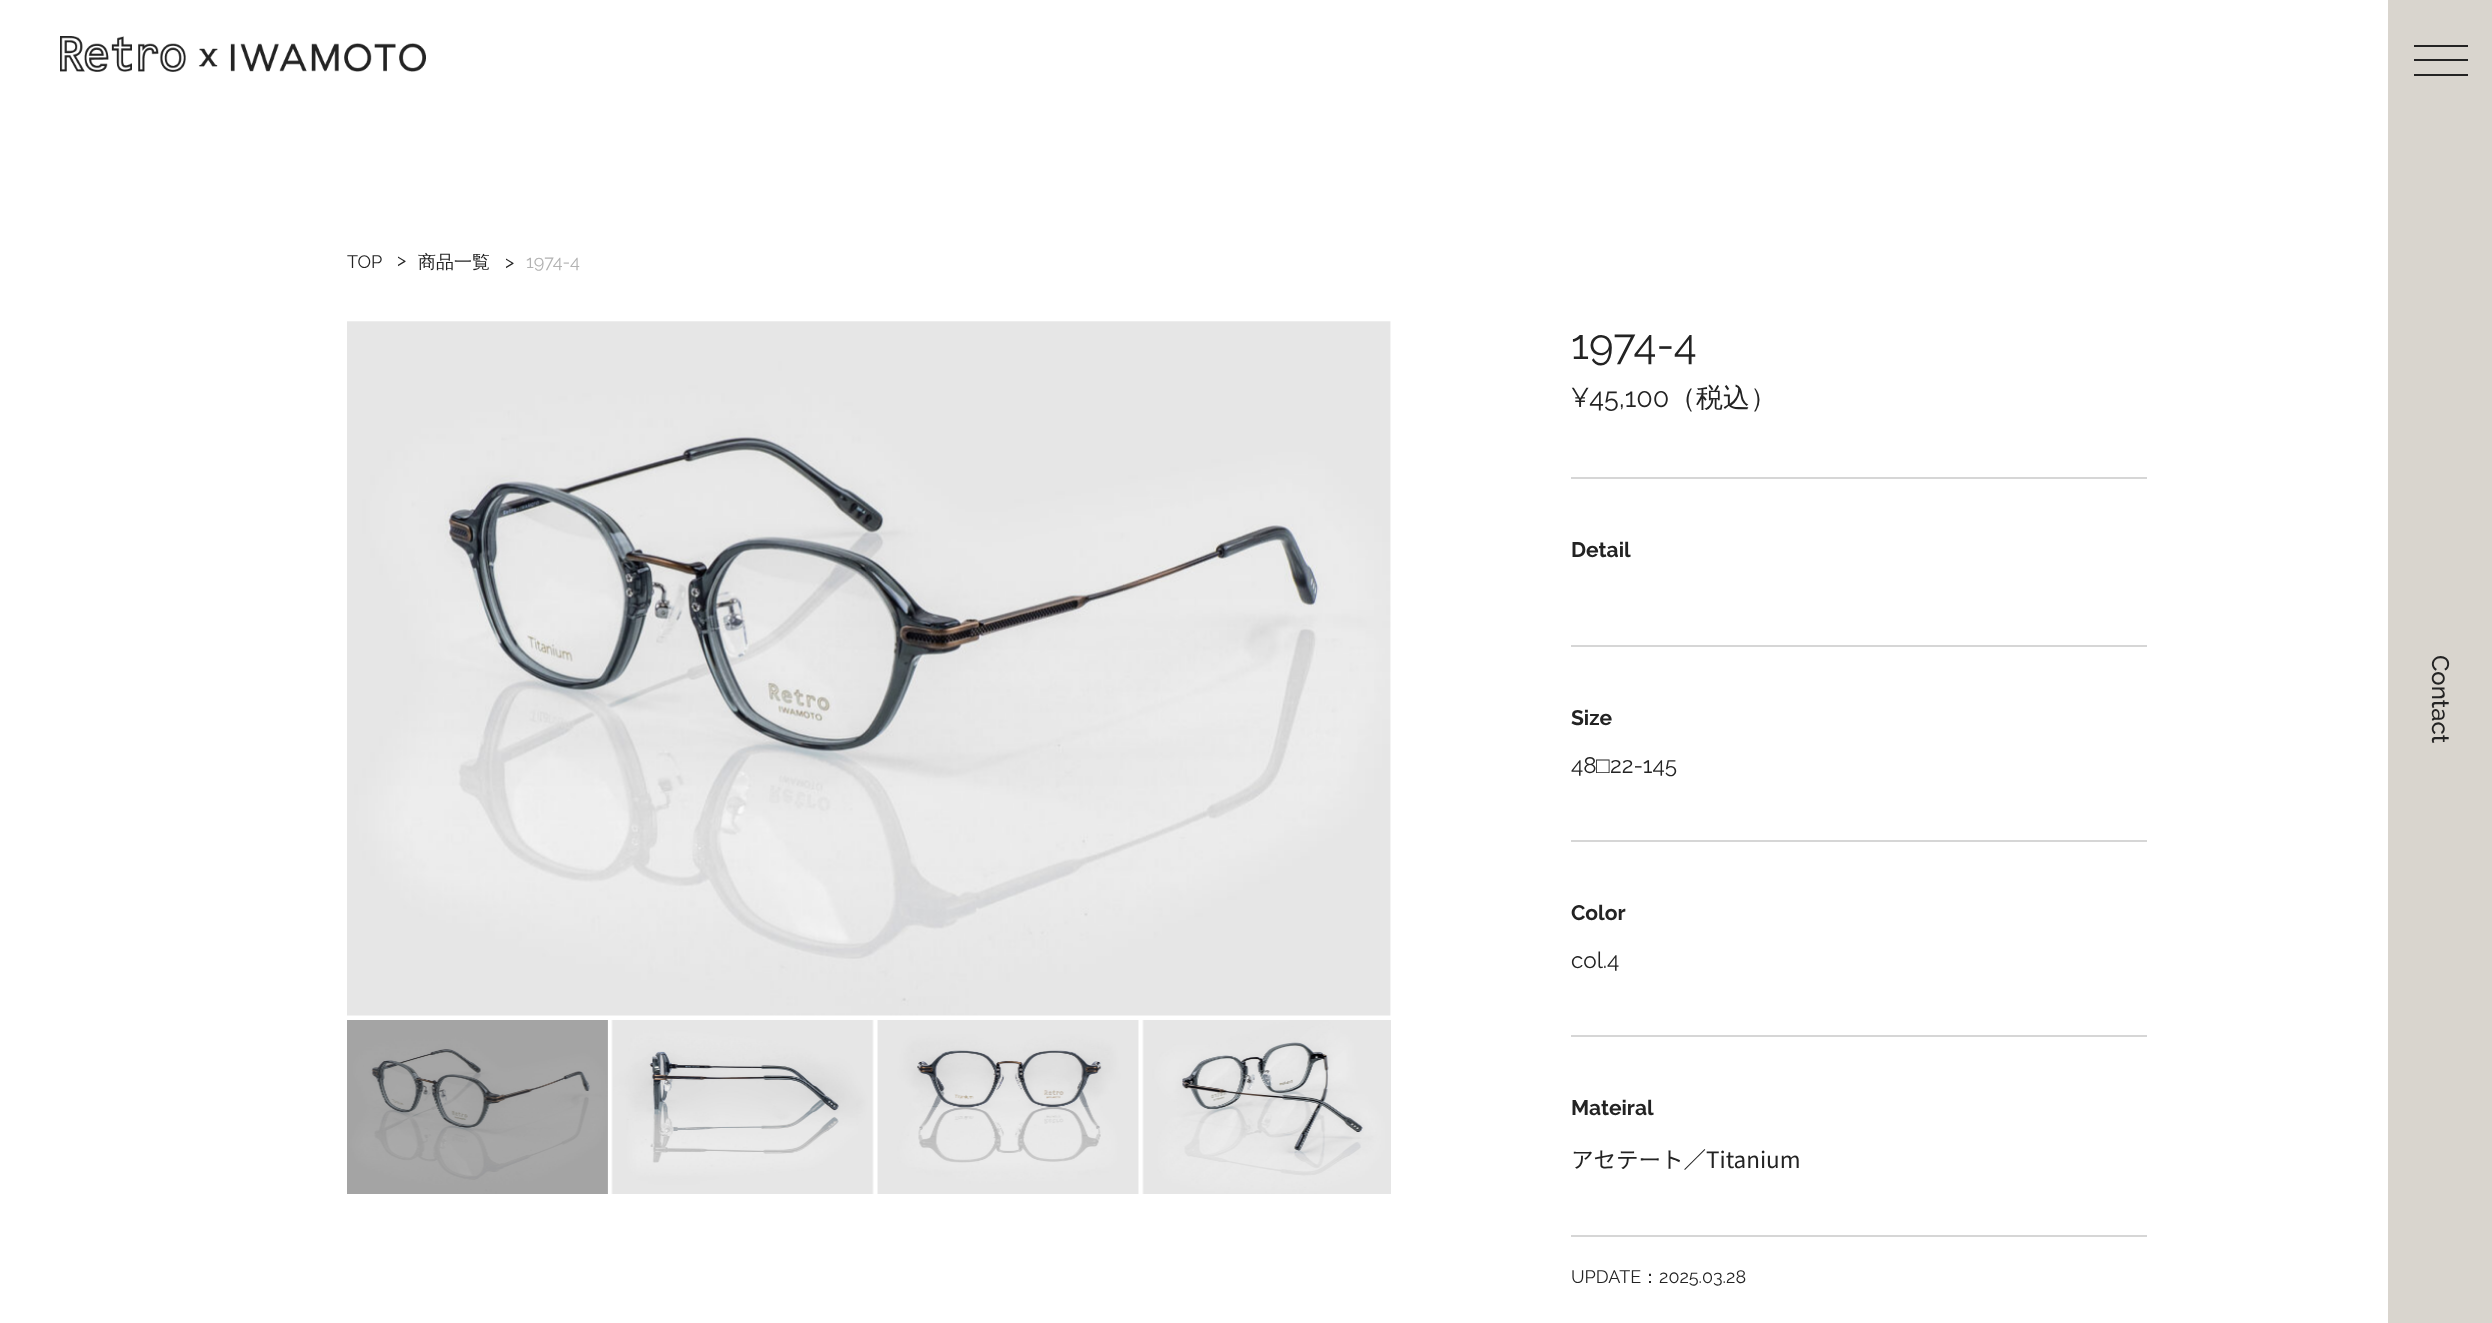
async function draw(canvas) {
  canvas.width = 2492;
  canvas.height = 1323;
  const ctx = canvas.getContext('2d');
  ctx.miterLimit = 4;
  ctx.fontKerning = 'normal';
  function label(s, x, y, font, color) {
    ctx.font = font;
    ctx.fillStyle = color;
    ctx.fillText(s, x, y);
  }
  function rect(x, y, w, h, color) {
    ctx.fillStyle = color;
    ctx.fillRect(x, y, w, h);
  }
  async function image(src, x, y, w, h) {
    const img = new Image();
    img.src = src;
    await img.decode();
    ctx.drawImage(img, x, y, w, h);
  }

  rect(0, 0, 2492, 1323, '#fff');
  rect(607, 1020, 1, 174, '#b3b3b3');
  await image('assets/img1.png', 60, 36, 366, 36);
  label('TOP', 347, 268, '18px Raleway', '#232323');
  label('>', 397, 266, '18px Raleway', '#232323');
  label('商品一覧', 418, 268, '500 18px WenQuanYi Zen Hei', '#232323');
  label('>', 505, 268, '18px Raleway', '#232323');
  label('1974-4', 526, 268, '18px Raleway', '#b2b2b2');
  await image('assets/img2.png', 347, 321, 1044, 695);
  await image('assets/img3.png', 347, 1020, 261, 174);
  await image('assets/img4.png', 611, 1020, 263, 174);
  await image('assets/img5.png', 877, 1020, 262, 174);
  await image('assets/img6.png', 1142, 1020, 249, 174);
  rect(1571, 477, 576, 2, '#d6d6d6');
  label('1974-4', 1571, 359, '42px Raleway', '#232323');
  label('¥45,100', 1571, 407, '27px Raleway', '#232323');
  label('（税込）', 1669, 407, '500 27px WenQuanYi Zen Hei', '#232323');
  rect(1571, 645, 576, 2, '#d6d6d6');
  label('Detail', 1571, 557, 'bold 21px Raleway', '#232323');
  rect(1571, 840, 576, 2, '#d6d6d6');
  label('Size', 1571, 725, 'bold 21px Raleway', '#232323');
  label('48', 1571, 773, '22.5px Raleway', '#232323');
  label('□', 1596, 773, '22.5px Liberation Sans', '#232323');
  label('22-145', 1610, 773, '22.5px Raleway', '#232323');
  rect(1571, 1035, 576, 2, '#d6d6d6');
  label('Color', 1571, 920, 'bold 21px Raleway', '#232323');
  label('col.4', 1571, 968, '22.5px Raleway', '#232323');
  rect(1571, 1235, 576, 2, '#d6d6d6');
  label('Mateiral', 1571, 1115, 'bold 21px Raleway', '#232323');
  label('アセテート／Titanium', 1571, 1168, '22.5px Noto Sans JP', '#232323');
  label('UPDATE', 1571, 1283, '18px Raleway', '#232323');
  label('：', 1641, 1283, '500 18px WenQuanYi Zen Hei', '#232323');
  label('2025.03.28', 1659, 1283, '18px Raleway', '#232323');
  rect(2388, 0, 104, 1323, '#d9d5ce');
  rect(2414, 45, 54, 2, '#232323');
  rect(2414, 59, 54, 2, '#232323');
  rect(2414, 74, 54, 2, '#232323');
  ctx.font = '500 24px Raleway';
  ctx.save();
  ctx.translate(2432, 655);
  ctx.rotate(90 * Math.PI / 180);
  ctx.fillText('Contact', 0, 0);
  ctx.restore();
}

draw(document.querySelector('canvas'));
